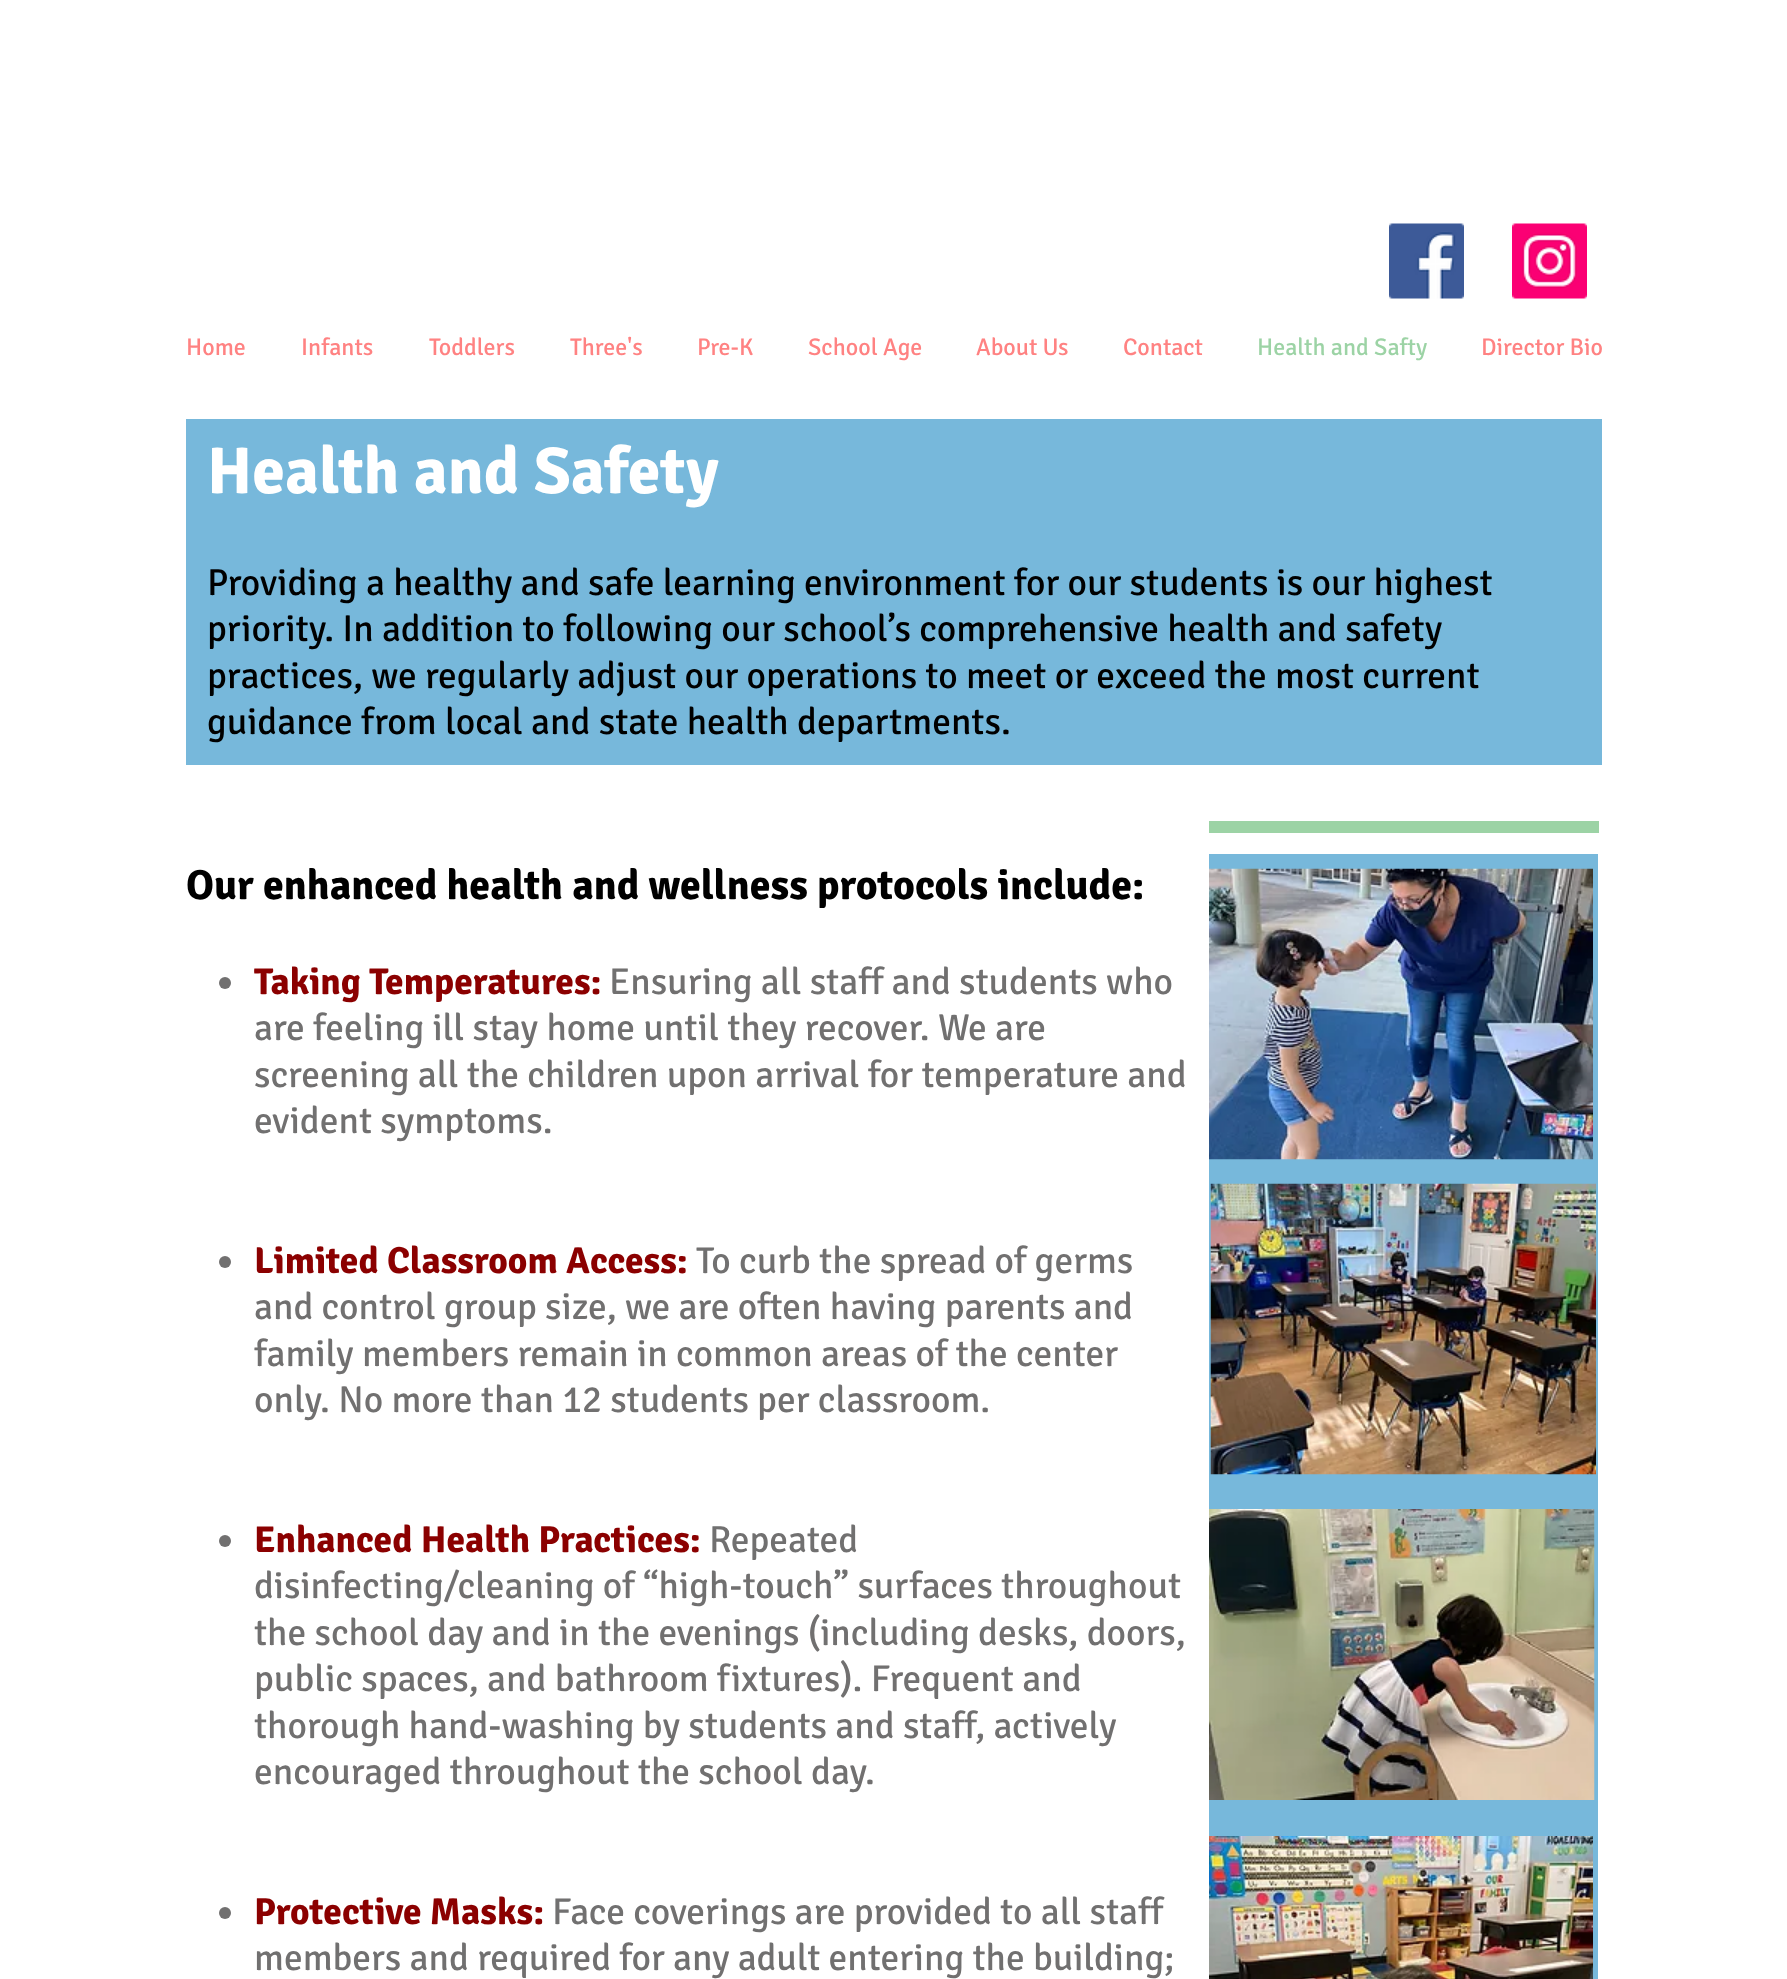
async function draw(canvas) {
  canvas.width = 1787;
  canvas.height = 1979;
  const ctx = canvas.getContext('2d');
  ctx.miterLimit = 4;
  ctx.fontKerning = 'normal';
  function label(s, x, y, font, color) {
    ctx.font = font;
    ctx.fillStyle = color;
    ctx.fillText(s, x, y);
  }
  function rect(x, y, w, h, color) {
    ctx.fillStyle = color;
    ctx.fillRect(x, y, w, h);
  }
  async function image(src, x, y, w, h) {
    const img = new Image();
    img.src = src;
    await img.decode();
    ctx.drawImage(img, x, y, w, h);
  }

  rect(0, 0, 1787, 1979, '#fff');
  await image('assets/img1.png', 1389, 223, 75, 76);
  await image('assets/img2.png', 1512, 223, 75, 76);
  label('Home', 186, 355, '24px Signika', '#ff8282');
  label('Infants', 301, 355, '24px Signika', '#ff8282');
  label('Toddlers', 429, 355, '24px Signika', '#ff8282');
  label('Three\'s', 570, 355, '24px Signika', '#ff8282');
  label('Pre-K', 697, 355, '24px Signika', '#ff8282');
  label('School Age', 808, 355, '24px Signika', '#ff8282');
  label('About Us', 976, 355, '24px Signika', '#ff8282');
  label('Contact', 1123, 355, '24px Signika', '#ff8282');
  label('Health and Safty', 1257, 355, '24px Signika', '#9cd3a5');
  label('Director Bio', 1481, 355, '24px Signika', '#ff8282');
  rect(186, 419, 1416, 346, '#77b8db');
  label('Health and Safety', 207, 493, 'bold 66px Signika', '#fff');
  label('Providing a healthy and safe learning environment for our students is our highest', 207, 595, '37.5px Signika', '#000');
  label('priority. In addition to following our school’s comprehensive health and safety', 207, 641, '37.5px Signika', '#000');
  label('practices, we regularly adjust our operations to meet or exceed the most current', 207, 688, '37.5px Signika', '#000');
  label('guidance from local and state health departments.', 207, 734, '37.5px Signika', '#000');
  rect(1209, 821, 390, 12, '#9cd3a5');
  label('Our enhanced health and wellness protocols include:', 186, 899, 'bold 42px Signika', '#000');
  ctx.fillStyle = '#717070';
  ctx.beginPath();
  ctx.arc(225, 983, 6, 0, 2 * Math.PI);
  ctx.fill();
  label('Taking Temperatures:', 254, 994, 'bold 37.5px Signika', '#8b0000');
  label('Ensuring all staff and students who', 609, 994, '37.5px Signika', '#717070');
  label('are feeling ill stay home until they recover. We are', 254, 1040, '37.5px Signika', '#717070');
  label('screening all the children upon arrival for temperature and', 254, 1087, '37.5px Signika', '#717070');
  label('evident symptoms.', 254, 1133, '37.5px Signika', '#717070');
  ctx.beginPath();
  ctx.arc(225, 1262, 6, 0, 2 * Math.PI);
  ctx.fill();
  label('Limited Classroom Access:', 254, 1273, 'bold 37.5px Signika', '#8b0000');
  label('To curb the spread of germs', 696, 1273, '37.5px Signika', '#717070');
  label('and control group size, we are often having parents and', 254, 1319, '37.5px Signika', '#717070');
  label('family members remain in common areas of the center', 254, 1366, '37.5px Signika', '#717070');
  label('only. No more than 12 students per classroom.', 254, 1412, '37.5px Signika', '#717070');
  ctx.beginPath();
  ctx.arc(225, 1541, 6, 0, 2 * Math.PI);
  ctx.fill();
  label('Enhanced Health Practices:', 254, 1552, 'bold 37.5px Signika', '#8b0000');
  label('Repeated', 709, 1552, '37.5px Signika', '#717070');
  label('disinfecting/cleaning of “high-touch” surfaces throughout', 254, 1598, '37.5px Signika', '#717070');
  label('the school day and in the evenings (including desks, doors,', 254, 1645, '37.5px Signika', '#717070');
  label('public spaces, and bathroom fixtures). Frequent and', 254, 1691, '37.5px Signika', '#717070');
  label('thorough hand-washing by students and staff, actively', 254, 1738, '37.5px Signika', '#717070');
  label('encouraged throughout the school day.', 254, 1784, '37.5px Signika', '#717070');
  ctx.beginPath();
  ctx.arc(225, 1913, 6, 0, 2 * Math.PI);
  ctx.fill();
  label('Protective Masks:', 254, 1924, 'bold 37.5px Signika', '#8b0000');
  label('Face coverings are provided to all staff', 552, 1924, '37.5px Signika', '#717070');
  label('members and required for any adult entering the building;', 254, 1970, '37.5px Signika', '#717070');
  rect(1209, 854, 389, 1125, '#77b8db');
  await image('assets/img3.png', 1209, 868, 384, 292);
  await image('assets/img4.png', 1210, 1183, 386, 292);
  await image('assets/img5.png', 1209, 1509, 386, 291);
  await image('assets/img6.png', 1209, 1836, 384, 143);
}

draw(document.querySelector('canvas'));
